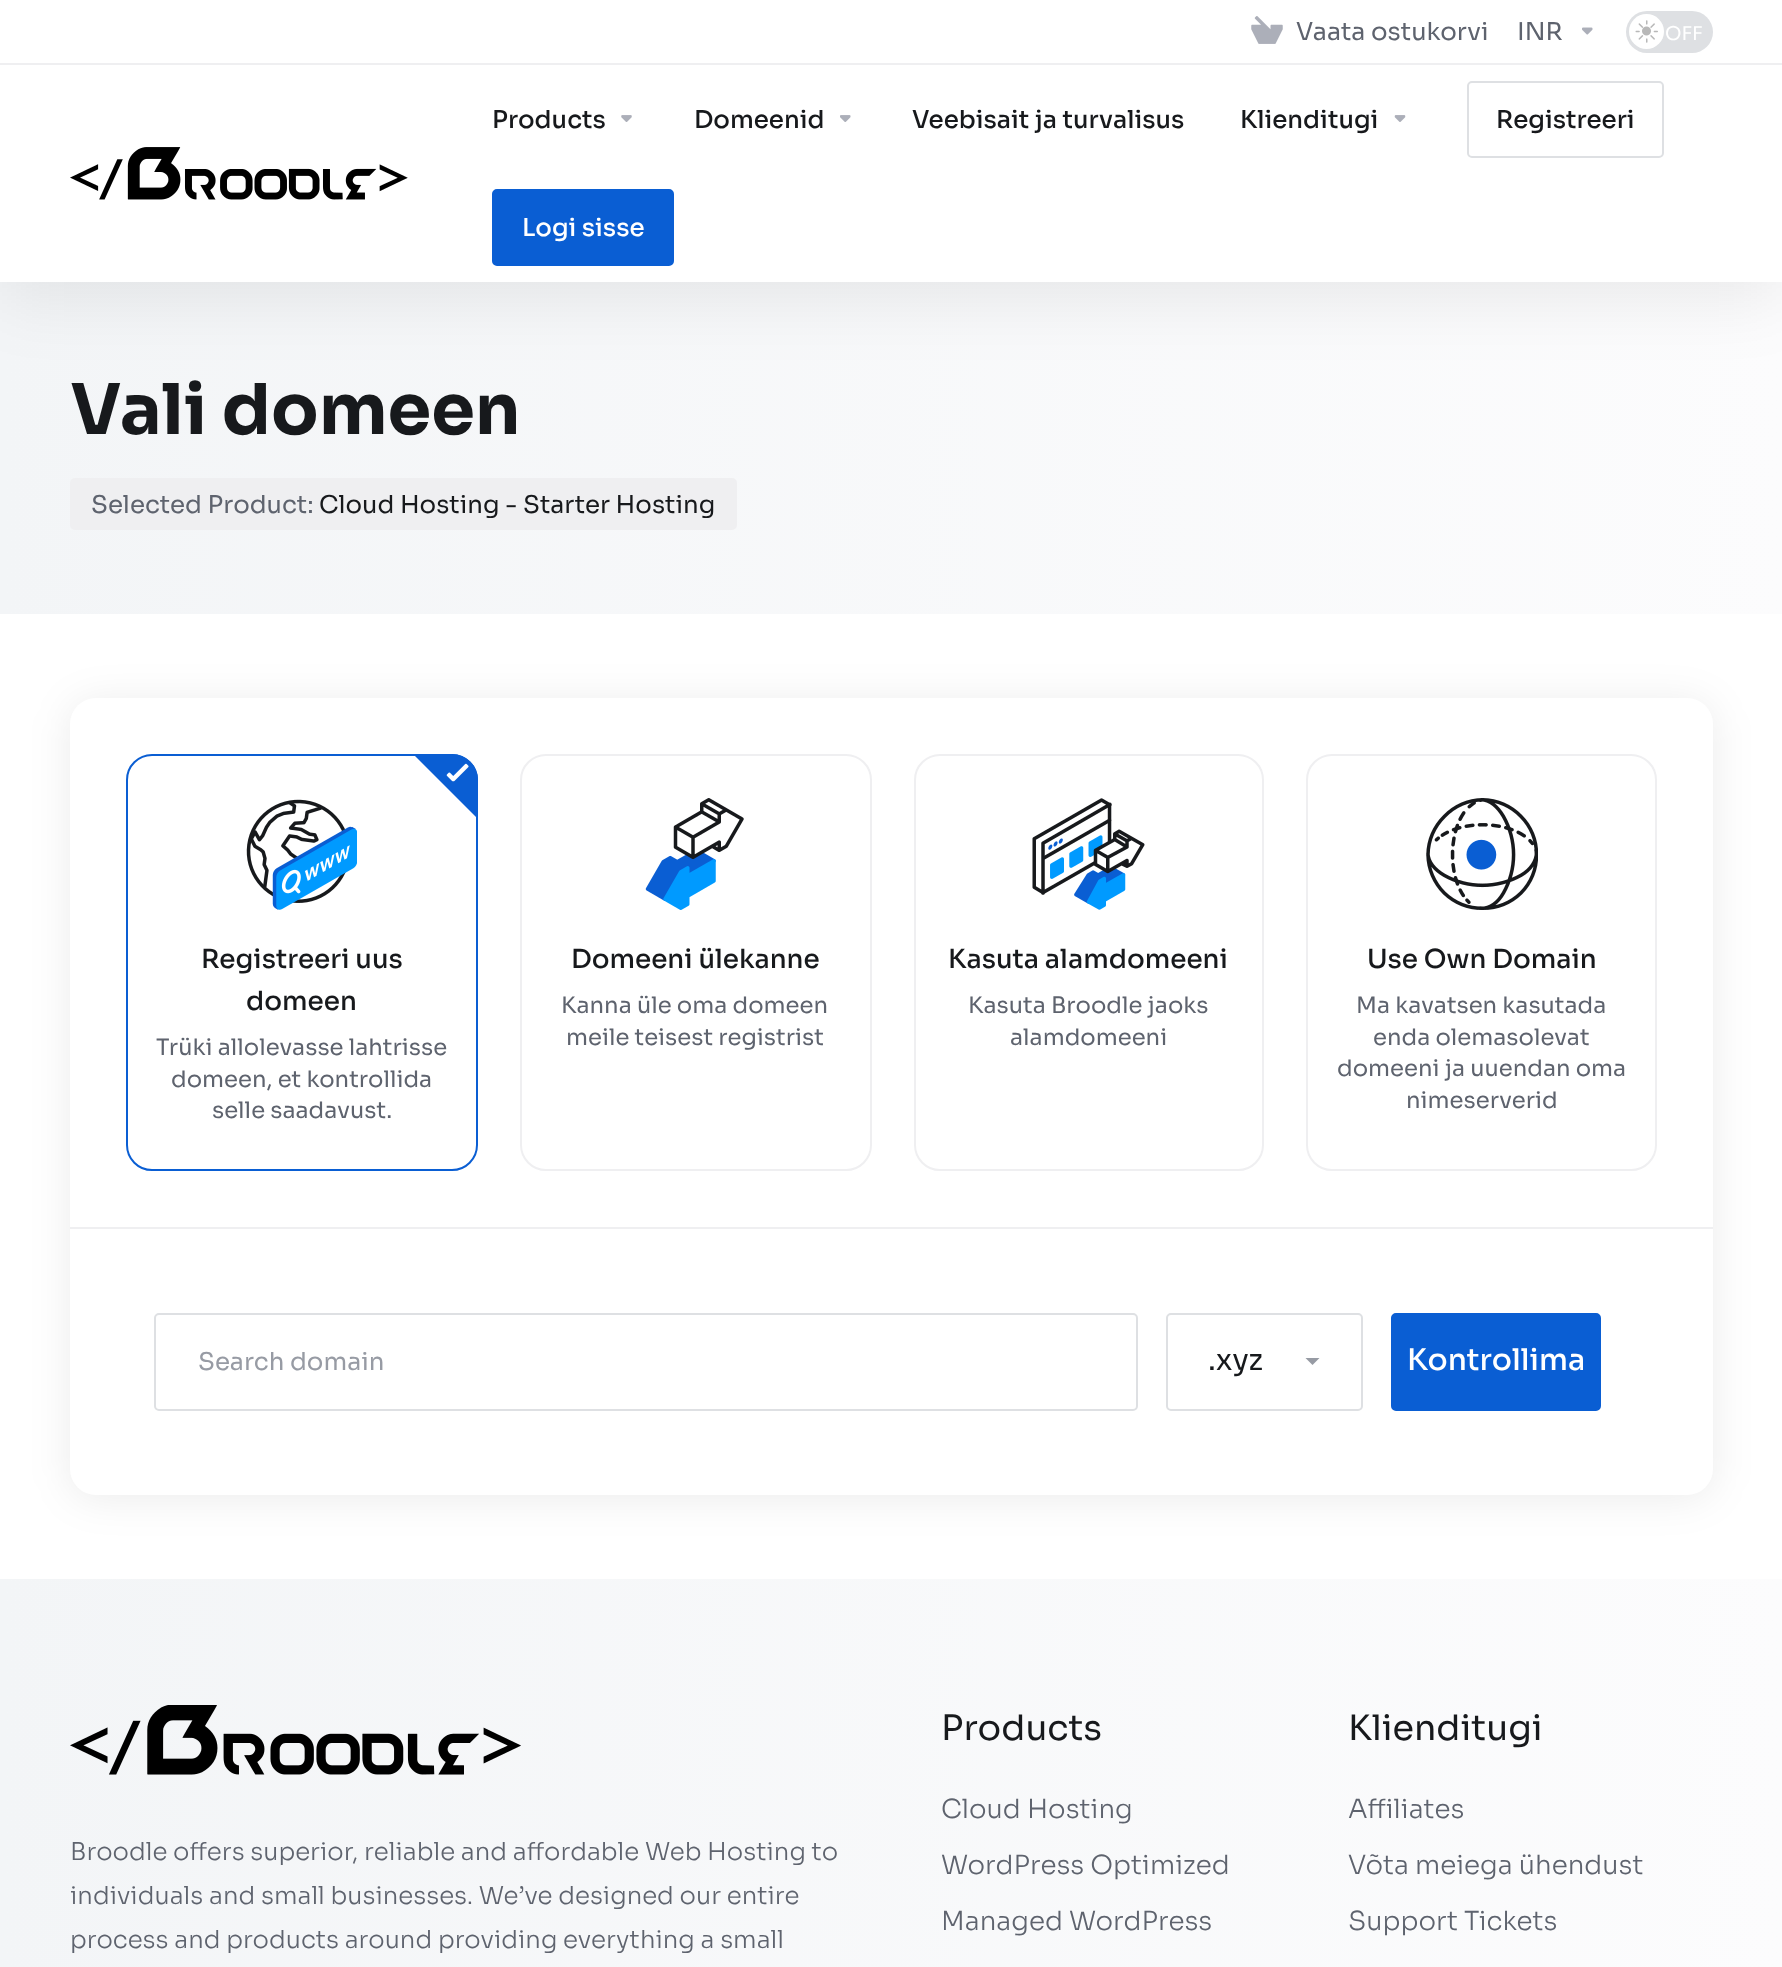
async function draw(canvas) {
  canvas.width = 1782;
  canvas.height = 1967;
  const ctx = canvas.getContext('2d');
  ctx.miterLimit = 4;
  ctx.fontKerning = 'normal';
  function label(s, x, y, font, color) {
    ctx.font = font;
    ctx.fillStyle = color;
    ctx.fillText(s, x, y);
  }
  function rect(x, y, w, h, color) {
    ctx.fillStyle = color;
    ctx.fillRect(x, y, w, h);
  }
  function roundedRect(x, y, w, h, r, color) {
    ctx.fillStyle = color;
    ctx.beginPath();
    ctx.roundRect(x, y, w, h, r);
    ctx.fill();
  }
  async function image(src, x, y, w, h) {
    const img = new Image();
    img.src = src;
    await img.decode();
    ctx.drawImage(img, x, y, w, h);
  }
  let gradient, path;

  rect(0, 0, 1782, 1967, '#fff');
  gradient = ctx.createLinearGradient(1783, 448, 0, 448);
  gradient.addColorStop(0, '#fcfcfd');
  gradient.addColorStop(1, '#f3f5f7');
  ctx.fillStyle = gradient;
  ctx.fillRect(0, 282, 1782, 332);
  ctx.fillStyle = '#00000014';
  ctx.filter = 'blur(35px)';
  ctx.beginPath();
  ctx.rect(0, 14, 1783, 282);
  ctx.fill();
  ctx.filter = 'none';
  rect(0, 0, 1782, 282, '#fff');
  rect(0, 63, 1782, 2, '#efeff1');
  await image('assets/img1.png', 1251, 16, 32, 28);
  label('Vaata ostukorvi', 1296, 40, '24.5px Sora', '#5e636e');
  label('INR', 1517, 40, '24.5px Sora', '#5e636e');
  await image('assets/img2.png', 1582, 27, 11, 8);
  roundedRect(1626, 11, 87, 42, 21, '#dee0e3');
  ctx.fillStyle = '#fff';
  ctx.beginPath();
  ctx.arc(1646.5, 31.5, 17.5, 0, 2 * Math.PI);
  ctx.fill();
  await image('assets/img3.png', 1635, 20, 23, 23);
  label('OFF', 1665, 40, '19px Sora', '#fff');
  await image('assets/img4.png', 70, 147, 338, 53);
  label('Products', 492, 128, '500 24.5px Sora', '#17191c');
  await image('assets/img5.png', 621, 115, 11, 7);
  label('Domeenid', 694, 128, '500 24.5px Sora', '#17191c');
  await image('assets/img6.png', 840, 115, 11, 7);
  label('Veebisait ja turvalisus', 912, 128, '500 24.5px Sora', '#17191c');
  label('Klienditugi', 1240, 128, '500 24.5px Sora', '#17191c');
  await image('assets/img7.png', 1394, 115, 12, 7);
  ctx.beginPath();
  ctx.roundRect(1468, 82, 195, 75, 4);
  ctx.strokeStyle = '#dee0e3';
  ctx.lineWidth = 2;
  ctx.stroke();
  label('Registreeri', 1496, 128, '500 24.5px Sora', '#17191c');
  ctx.fillStyle = '#0a5ed3';
  ctx.beginPath();
  ctx.roundRect(493, 190, 180, 75, 4);
  ctx.fill();
  ctx.strokeStyle = '#0a5ed3';
  ctx.stroke();
  label('Logi sisse', 522, 236, '500 24.5px Sora', '#fff');
  label('Vali domeen', 70, 434, 'bold 70px Sora', '#17191c');
  roundedRect(70, 478, 667, 52, 5, '#efeff1');
  label('Selected Product:', 91, 513, '24.5px Sora', '#5e636e');
  label('Cloud Hosting - Starter Hosting', 319, 513, '24.5px Sora', '#17191c');
  ctx.fillStyle = '#00000014';
  ctx.filter = 'blur(21px)';
  ctx.beginPath();
  ctx.roundRect(70, 702, 1643, 796, 26);
  ctx.fill();
  ctx.filter = 'none';
  roundedRect(70, 698, 1643, 797, 26, '#fff');
  ctx.beginPath();
  ctx.roundRect(127, 755, 350, 415, 25);
  ctx.stroke();
  ctx.fillStyle = '#0a5ed3';
  path = new Path2D('M478 817L477 818L413 754H452C466 754 478 766 478 780Z');
  ctx.fill(path);
  await image('assets/img8.png', 446, 763, 23, 19);
  await image('assets/img9.png', 246, 799, 111, 111);
  label('Registreeri uus', 201, 968, '500 26.25px Sora', '#17191c');
  label('domeen', 246, 1010, '500 26.25px Sora', '#17191c');
  label('Trüki allolevasse lahtrisse', 156, 1055, '22.75px Sora', '#5e636e');
  label('domeen, et kontrollida', 171, 1087, '22.75px Sora', '#5e636e');
  label('selle saadavust.', 212, 1118, '22.75px Sora', '#5e636e');
  ctx.beginPath();
  ctx.roundRect(521, 755, 350, 415, 25);
  ctx.strokeStyle = '#efeff1';
  ctx.stroke();
  await image('assets/img10.png', 645, 798, 99, 112);
  label('Domeeni ülekanne', 571, 968, '500 26.25px Sora', '#17191c');
  label('Kanna üle oma domeen', 561, 1013, '22.75px Sora', '#5e636e');
  label('meile teisest registrist', 566, 1045, '22.75px Sora', '#5e636e');
  ctx.beginPath();
  ctx.roundRect(915, 755, 348, 415, 25);
  ctx.stroke();
  await image('assets/img11.png', 1032, 798, 113, 112);
  label('Kasuta alamdomeeni', 948, 968, '500 26.25px Sora', '#17191c');
  label('Kasuta Broodle jaoks', 968, 1013, '22.75px Sora', '#5e636e');
  label('alamdomeeni', 1010, 1045, '22.75px Sora', '#5e636e');
  ctx.beginPath();
  ctx.roundRect(1307, 755, 349, 415, 25);
  ctx.stroke();
  await image('assets/img12.png', 1426, 798, 112, 112);
  label('Use Own Domain', 1367, 968, '500 26.25px Sora', '#17191c');
  label('Ma kavatsen kasutada', 1356, 1013, '22.75px Sora', '#5e636e');
  label('enda olemasolevat', 1373, 1045, '22.75px Sora', '#5e636e');
  label('domeeni ja uuendan oma', 1337, 1076, '22.75px Sora', '#5e636e');
  label('nimeserverid', 1406, 1108, '22.75px Sora', '#5e636e');
  rect(70, 1227, 1643, 2, '#efeff1');
  ctx.beginPath();
  ctx.roundRect(155, 1314, 982, 96, 4);
  ctx.strokeStyle = '#dee0e3';
  ctx.stroke();
  label('Search domain', 198, 1370, '24.5px Sora', '#979ba4');
  ctx.beginPath();
  ctx.roundRect(1167, 1314, 195, 96, 4);
  ctx.stroke();
  label('.xyz', 1208, 1370, '29.75px Sora', '#17191c');
  ctx.fillStyle = '#979ba4';
  path = new Path2D('M1305.5 1358H1319.5L1312.5 1365Z');
  ctx.fill(path);
  ctx.fillStyle = '#0a5ed3';
  ctx.beginPath();
  ctx.roundRect(1392, 1314, 208, 96, 4);
  ctx.fill();
  ctx.strokeStyle = '#0a5ed3';
  ctx.stroke();
  label('Kontrollima', 1407, 1370, '500 29.75px Sora', '#fff');
  gradient = ctx.createLinearGradient(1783, 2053, 0, 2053);
  gradient.addColorStop(0, '#fcfcfd');
  gradient.addColorStop(1, '#f3f5f7');
  ctx.fillStyle = gradient;
  ctx.fillRect(0, 1579, 1782, 388);
  await image('assets/img13.png', 70, 1705, 451, 70);
  label('Broodle offers superior, reliable and affordable Web Hosting to', 70, 1860, '300 24.5px Sora', '#5e636e');
  label('individuals and small businesses. We’ve designed our entire', 70, 1904, '300 24.5px Sora', '#5e636e');
  label('process and products around providing everything a small', 70, 1948, '300 24.5px Sora', '#5e636e');
  label('Products', 941, 1740, '35px Sora', '#17191c');
  label('Cloud Hosting', 941, 1818, '300 26.25px Sora', '#5e636e');
  label('WordPress Optimized', 941, 1874, '300 26.25px Sora', '#5e636e');
  label('Managed WordPress', 941, 1930, '300 26.25px Sora', '#5e636e');
  label('Klienditugi', 1348, 1740, '35px Sora', '#17191c');
  label('Affiliates', 1348, 1818, '300 26.25px Sora', '#5e636e');
  label('Võta meiega ühendust', 1348, 1874, '300 26.25px Sora', '#5e636e');
  label('Support Tickets', 1348, 1930, '300 26.25px Sora', '#5e636e');
}

draw(document.querySelector('canvas'));
